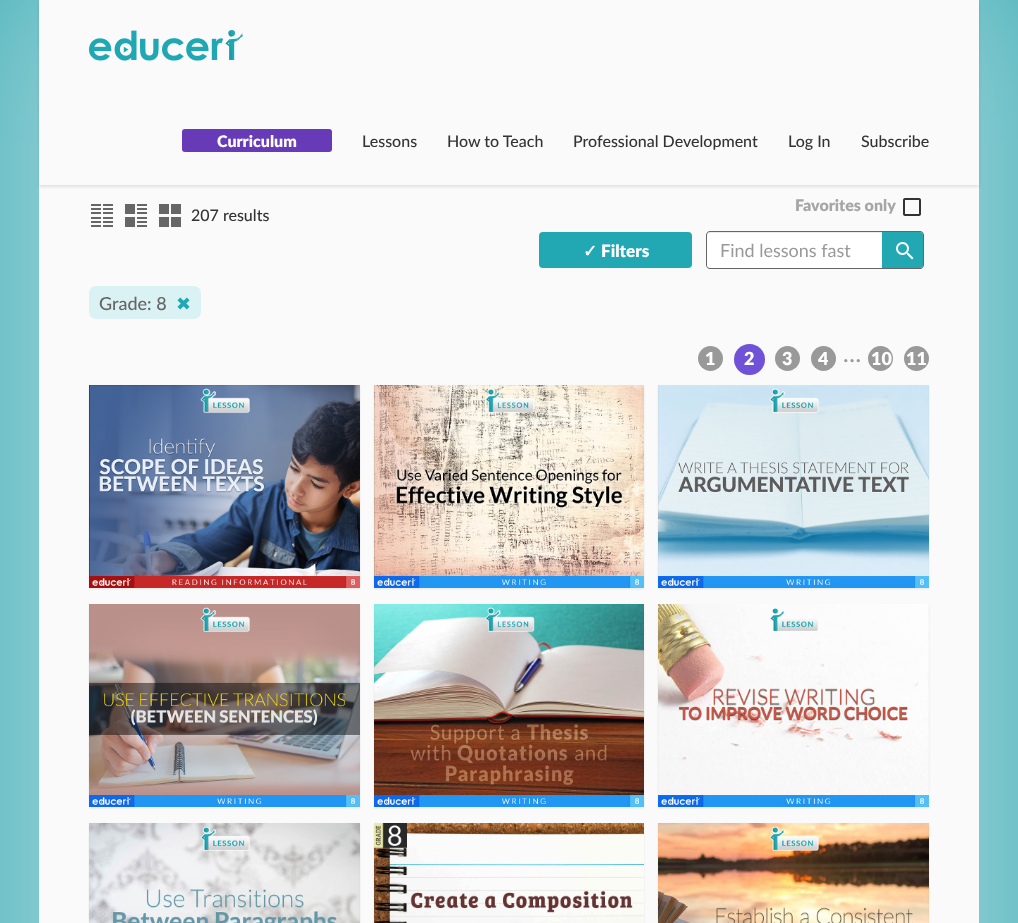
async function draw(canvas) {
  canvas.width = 1018;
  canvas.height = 923;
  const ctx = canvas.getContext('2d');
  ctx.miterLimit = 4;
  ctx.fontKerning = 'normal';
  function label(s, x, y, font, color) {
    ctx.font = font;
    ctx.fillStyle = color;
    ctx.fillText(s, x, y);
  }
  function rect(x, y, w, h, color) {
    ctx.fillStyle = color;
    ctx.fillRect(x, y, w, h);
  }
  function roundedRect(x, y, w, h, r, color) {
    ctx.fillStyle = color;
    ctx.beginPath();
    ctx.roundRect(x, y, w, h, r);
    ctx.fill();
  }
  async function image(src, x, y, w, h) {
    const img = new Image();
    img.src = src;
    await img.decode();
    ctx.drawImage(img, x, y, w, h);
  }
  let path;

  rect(0, 0, 1018, 923, '#2ba4ae');
  ctx.fillStyle = '#ffffff80';
  ctx.filter = 'blur(100px)';
  ctx.beginPath();
  ctx.rect(-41, -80, 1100, 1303);
  ctx.fill();
  ctx.filter = 'none';
  rect(39, 185, 940, 738, '#fafafa');
  ctx.fillStyle = '#0000001a';
  ctx.filter = 'blur(1.5px)';
  ctx.beginPath();
  ctx.rect(39, 2, 940, 185);
  ctx.fill();
  ctx.filter = 'none';
  rect(39, 0, 940, 185, '#fafafa');
  await image('assets/img1.png', 89, 30, 154, 31);
  roundedRect(182, 129, 150, 23, 3, '#673ab7');
  label('Curriculum', 217, 147, '900 16px Lato', '#fff');
  label('Lessons', 362, 147, '500 16px Lato', '#333');
  label('How to Teach', 447, 147, '500 16px Lato', '#333');
  label('Professional Development', 573, 147, '500 16px Lato', '#333');
  label('Log In', 788, 147, '500 16px Lato', '#333');
  label('Subscribe', 861, 147, '500 16px Lato', '#333');
  await image('assets/img2.png', 91, 204, 22, 23);
  await image('assets/img3.png', 125, 204, 22, 23);
  await image('assets/img4.png', 159, 204, 22, 23);
  label('207 results', 191, 221, '500 16px Lato', '#333');
  label('Favorites only', 795, 211, '900 16px Lato', '#a6a6a6');
  await image('assets/img5.png', 903, 198, 18, 18);
  roundedRect(539, 232, 153, 36, 4, '#21a8b3');
  label('✓', 583, 257, 'bold 17px DejaVu Sans', '#fff');
  label('Filters', 601, 257, '900 17px Lato', '#fff');
  ctx.beginPath();
  ctx.roundRect(706, 231, 179, 38, [4, 0, 0, 4]);
  ctx.fill();
  ctx.fillStyle = '#ececec';
  path = new Path2D('M710 233H885V232H709C707 233 707 234 707 236C707 234 708 233 710 233Z');
  ctx.fill(path);
  ctx.fillStyle = '#666';
  path = new Path2D('M710 231H885V269H710C708 269 706 267 706 265V235C706 233 708 231 710 231ZM710 232H885V268H710C708 268 707 267 707 265V235C707 233 708 232 710 232Z');
  ctx.fill(path, 'evenodd');
  label('Find lessons fast', 720, 257, '18px Lato', '#999');
  ctx.fillStyle = '#21a8b3';
  ctx.beginPath();
  ctx.roundRect(882, 232, 41, 36, [0, 3, 3, 0]);
  ctx.fill();
  ctx.fillStyle = '#666';
  path = new Path2D('M882 231H920C922 231 924 233 924 235V265C924 267 922 269 920 269H882ZM882 232H920C922 232 923 233 923 235V265C923 267 922 268 920 268H882Z');
  ctx.fill(path, 'evenodd');
  await image('assets/img6.png', 896, 242, 18, 18);
  roundedRect(89, 286, 112, 33, 7, '#dbf2f4');
  label('Grade: 8', 99, 310, '500 18px Lato', '#666');
  label('✖', 176, 310, '18px DejaVu Sans', '#21a8b3');
  ctx.fillStyle = '#999';
  ctx.beginPath();
  ctx.arc(710.5, 358.5, 12.5, 0, 2 * Math.PI);
  ctx.fill();
  label('1', 705, 365, '900 18px Lato', '#fff');
  ctx.fillStyle = '#6f52d8';
  ctx.beginPath();
  ctx.arc(749.5, 359.5, 15.5, 0, 2 * Math.PI);
  ctx.fill();
  label('2', 744, 365, '900 18px Lato', '#fff');
  ctx.fillStyle = '#999';
  ctx.beginPath();
  ctx.arc(787.5, 358.5, 12.5, 0, 2 * Math.PI);
  ctx.fill();
  label('3', 782, 365, '900 18px Lato', '#fff');
  ctx.fillStyle = '#999';
  ctx.beginPath();
  ctx.arc(823.5, 358.5, 12.5, 0, 2 * Math.PI);
  ctx.fill();
  label('4', 818, 365, '900 18px Lato', '#fff');
  label('…', 843, 362, '500 24px Lato', '#999');
  ctx.beginPath();
  ctx.arc(880.5, 358.5, 12.5, 0, 2 * Math.PI);
  ctx.fill();
  label('10', 871, 365, '900 18px Lato', '#fff');
  ctx.fillStyle = '#999';
  ctx.beginPath();
  ctx.arc(916.5, 358.5, 12.5, 0, 2 * Math.PI);
  ctx.fill();
  label('11', 906, 365, '900 18px Lato', '#fff');
  ctx.fillStyle = '#00000012';
  ctx.filter = 'blur(1px)';
  ctx.beginPath();
  ctx.rect(89, 386, 271, 203);
  ctx.fill();
  ctx.filter = 'none';
  await image('assets/img7.png', 89, 385, 271, 203);
  ctx.filter = 'blur(1px)';
  ctx.beginPath();
  ctx.rect(374, 386, 270, 203);
  ctx.fill();
  ctx.filter = 'none';
  await image('assets/img8.png', 374, 385, 270, 203);
  ctx.filter = 'blur(1px)';
  ctx.beginPath();
  ctx.rect(658, 386, 271, 203);
  ctx.fill();
  ctx.filter = 'none';
  await image('assets/img9.png', 658, 385, 271, 203);
  ctx.filter = 'blur(1px)';
  ctx.beginPath();
  ctx.rect(89, 605, 271, 203);
  ctx.fill();
  ctx.filter = 'none';
  await image('assets/img10.png', 89, 604, 271, 203);
  ctx.filter = 'blur(1px)';
  ctx.beginPath();
  ctx.rect(374, 605, 270, 203);
  ctx.fill();
  ctx.filter = 'none';
  await image('assets/img11.png', 374, 604, 270, 203);
  ctx.filter = 'blur(1px)';
  ctx.beginPath();
  ctx.rect(658, 605, 271, 203);
  ctx.fill();
  ctx.filter = 'none';
  await image('assets/img12.png', 658, 604, 271, 203);
  ctx.filter = 'blur(1px)';
  ctx.beginPath();
  ctx.rect(89, 824, 271, 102);
  ctx.fill();
  ctx.filter = 'none';
  await image('assets/img13.png', 89, 823, 271, 100);
  ctx.filter = 'blur(1px)';
  ctx.beginPath();
  ctx.rect(374, 824, 270, 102);
  ctx.fill();
  ctx.filter = 'none';
  await image('assets/img14.png', 374, 823, 270, 100);
  ctx.filter = 'blur(1px)';
  ctx.beginPath();
  ctx.rect(658, 824, 271, 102);
  ctx.fill();
  ctx.filter = 'none';
  await image('assets/img15.png', 658, 823, 271, 100);
}

draw(document.querySelector('canvas'));
